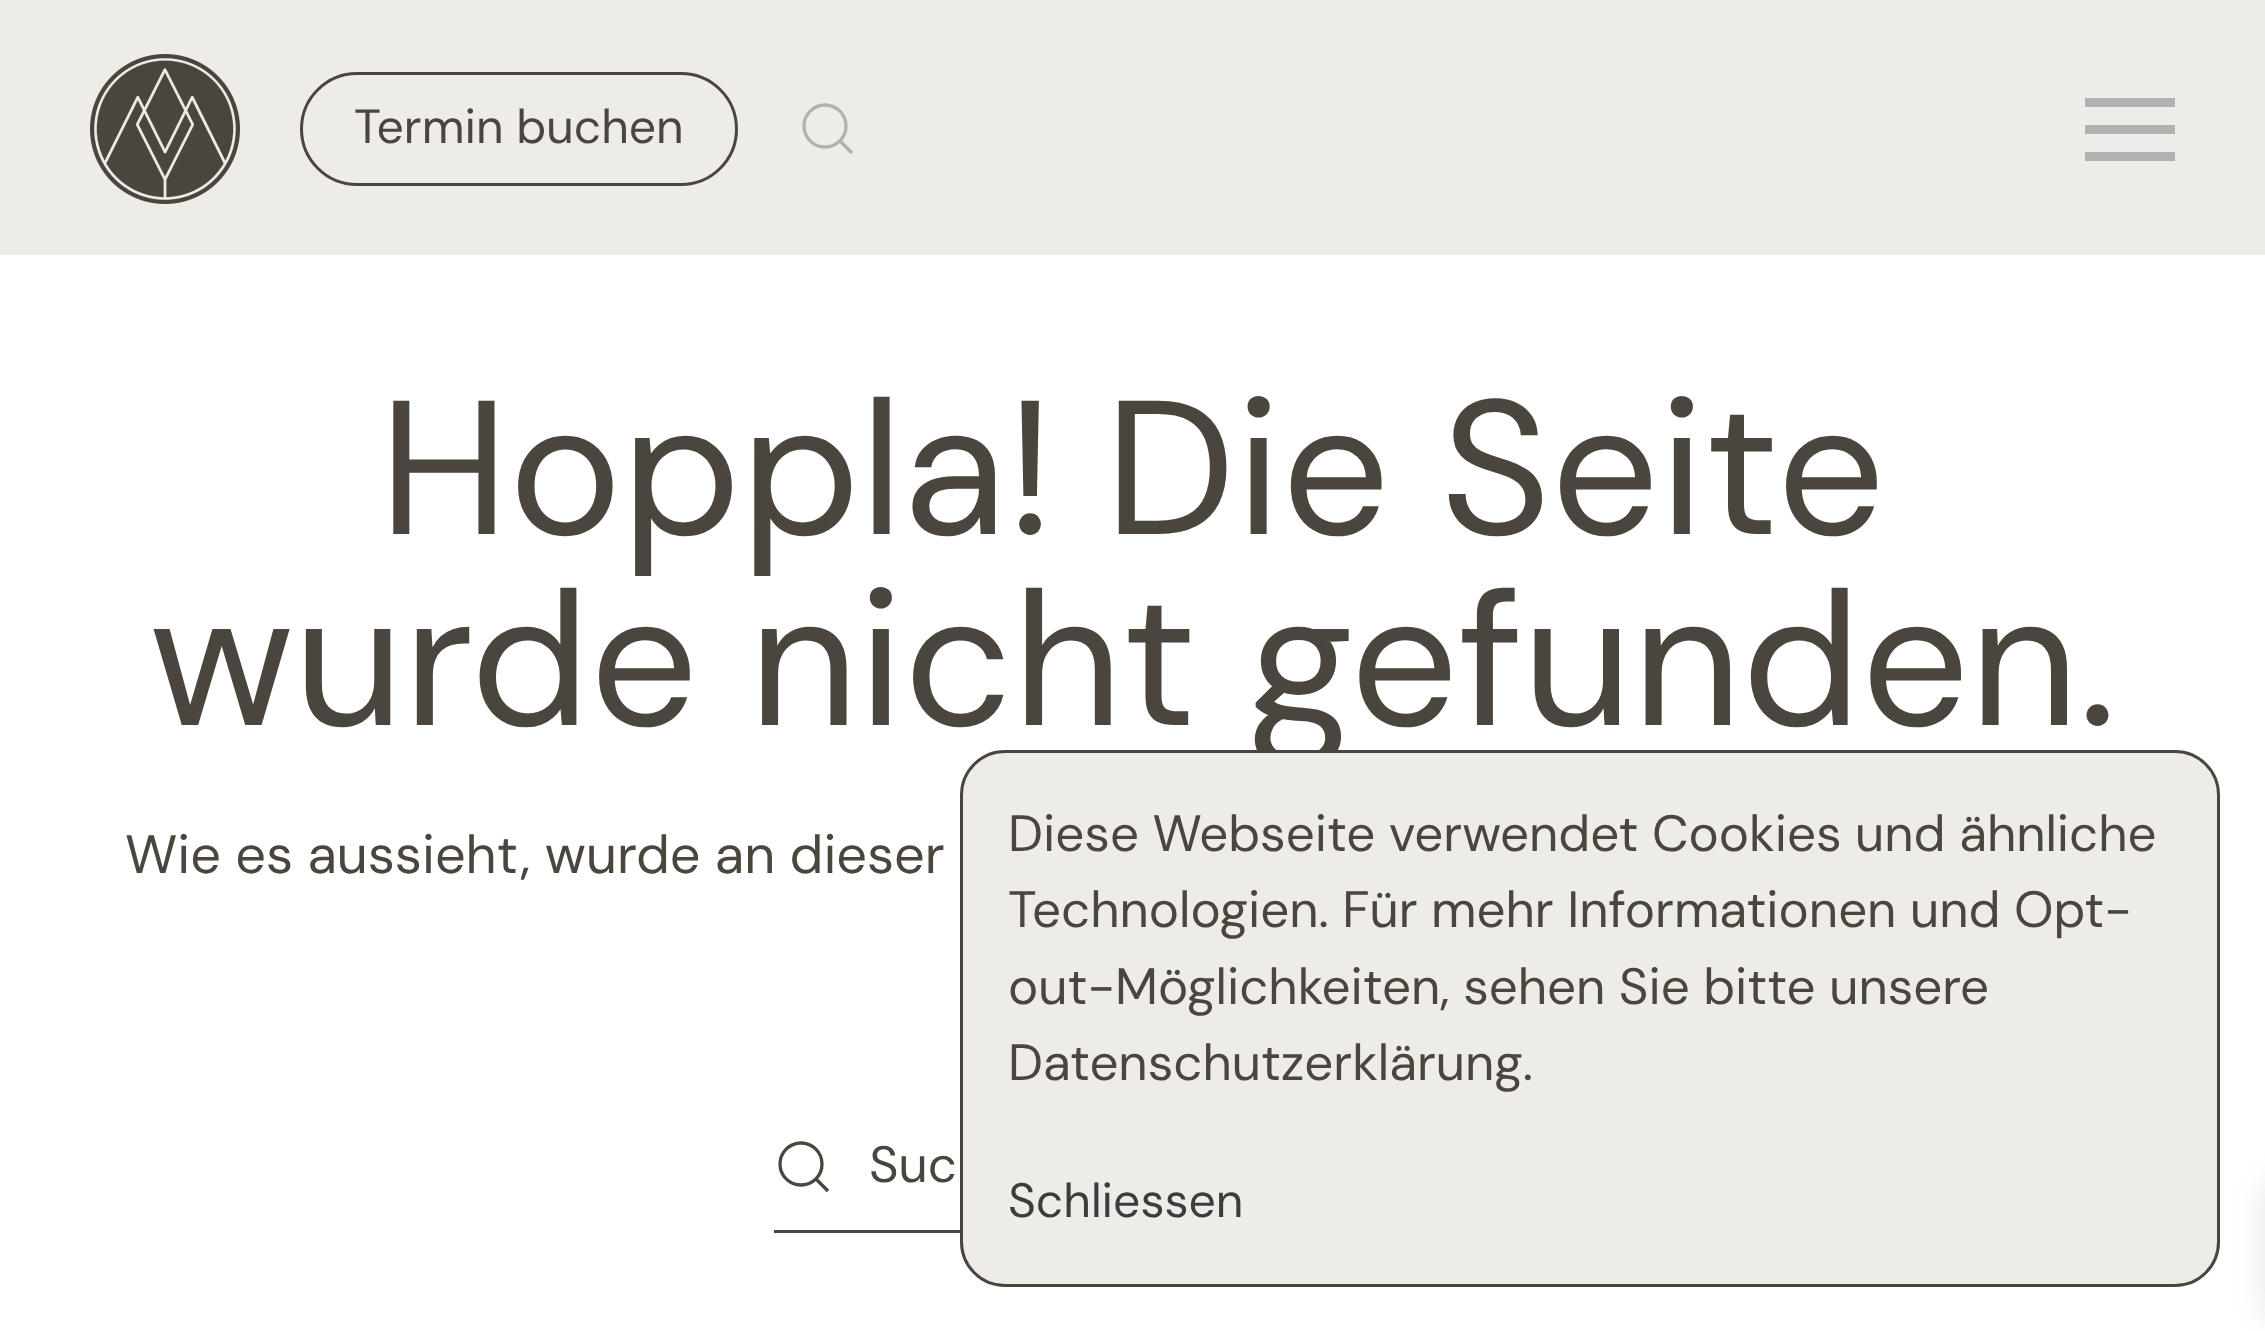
async function draw(canvas) {
  canvas.width = 2265;
  canvas.height = 1331;
  const ctx = canvas.getContext('2d');
  ctx.miterLimit = 4;
  ctx.fontKerning = 'normal';
  function label(s, x, y, font, color) {
    ctx.font = font;
    ctx.fillStyle = color;
    ctx.fillText(s, x, y);
  }
  function rect(x, y, w, h, color) {
    ctx.fillStyle = color;
    ctx.fillRect(x, y, w, h);
  }
  async function image(src, x, y, w, h) {
    const img = new Image();
    img.src = src;
    await img.decode();
    ctx.drawImage(img, x, y, w, h);
  }
  let path;

  rect(0, 0, 2265, 1331, '#fff');
  rect(0, 0, 2265, 255, '#edece8');
  await image('assets/img1.png', 90, 54, 150, 150);
  ctx.beginPath();
  ctx.roundRect(301.5, 73.5, 435, 111, 55.5);
  ctx.strokeStyle = '#4b463d';
  ctx.lineWidth = 3;
  ctx.stroke();
  label('Termin buchen', 354, 143, '48px DM Sans', '#4b463d');
  ctx.beginPath();
  ctx.arc(825, 126, 21, 0, 2 * Math.PI);
  ctx.strokeStyle = '#b1b1b1';
  ctx.lineWidth = 3.3;
  ctx.stroke();
  path = new Path2D('M840 141L852 153Z');
  ctx.stroke(path);
  rect(2085, 98, 90, 9, '#b1b1b1');
  rect(2085, 125, 90, 9, '#b1b1b1');
  rect(2085, 152, 90, 9, '#b1b1b1');
  label('Hoppla! Die Seite', 379, 534, '190.5px DM Sans', '#4b463d');
  label('wurde nicht gefunden.', 149, 725, '190.5px DM Sans', '#4b463d');
  label('Wie es aussieht, wurde an dieser', 125, 873, '54px DM Sans', '#4b463d');
  ctx.beginPath();
  ctx.arc(801, 1164, 21, 0, 2 * Math.PI);
  ctx.strokeStyle = '#4b463d';
  ctx.stroke();
  path = new Path2D('M816 1179L828 1191Z');
  ctx.stroke(path);
  rect(774, 1230, 186, 3, '#4b463d');
  label('Suc', 869, 1182, '51px DM Sans', '#4b463d');
  ctx.fillStyle = '#edece8';
  ctx.beginPath();
  ctx.roundRect(961.5, 751.5, 1257, 534, 43.5);
  ctx.fill();
  ctx.lineWidth = 3;
  ctx.stroke();
  label('Diese Webseite verwendet Cookies und ähnliche', 1008, 851, '51px DM Sans', '#4b463d');
  label('Technologien. Für mehr Informationen und Opt-', 1008, 927, '51px DM Sans', '#4b463d');
  label('out-Möglichkeiten, sehen Sie bitte unsere', 1008, 1004, '51px DM Sans', '#4b463d');
  label('Datenschutzerklärung.', 1008, 1080, '51px DM Sans', '#4b463d');
  label('Schliessen', 1008, 1217, '48px DM Sans', '#3b3d3c');
  ctx.fillStyle = '#0000001a';
  ctx.filter = 'blur(15px)';
  ctx.beginPath();
  ctx.rect(2265, 1182, 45, 135);
  ctx.fill();
  ctx.filter = 'none';
}

draw(document.querySelector('canvas'));
